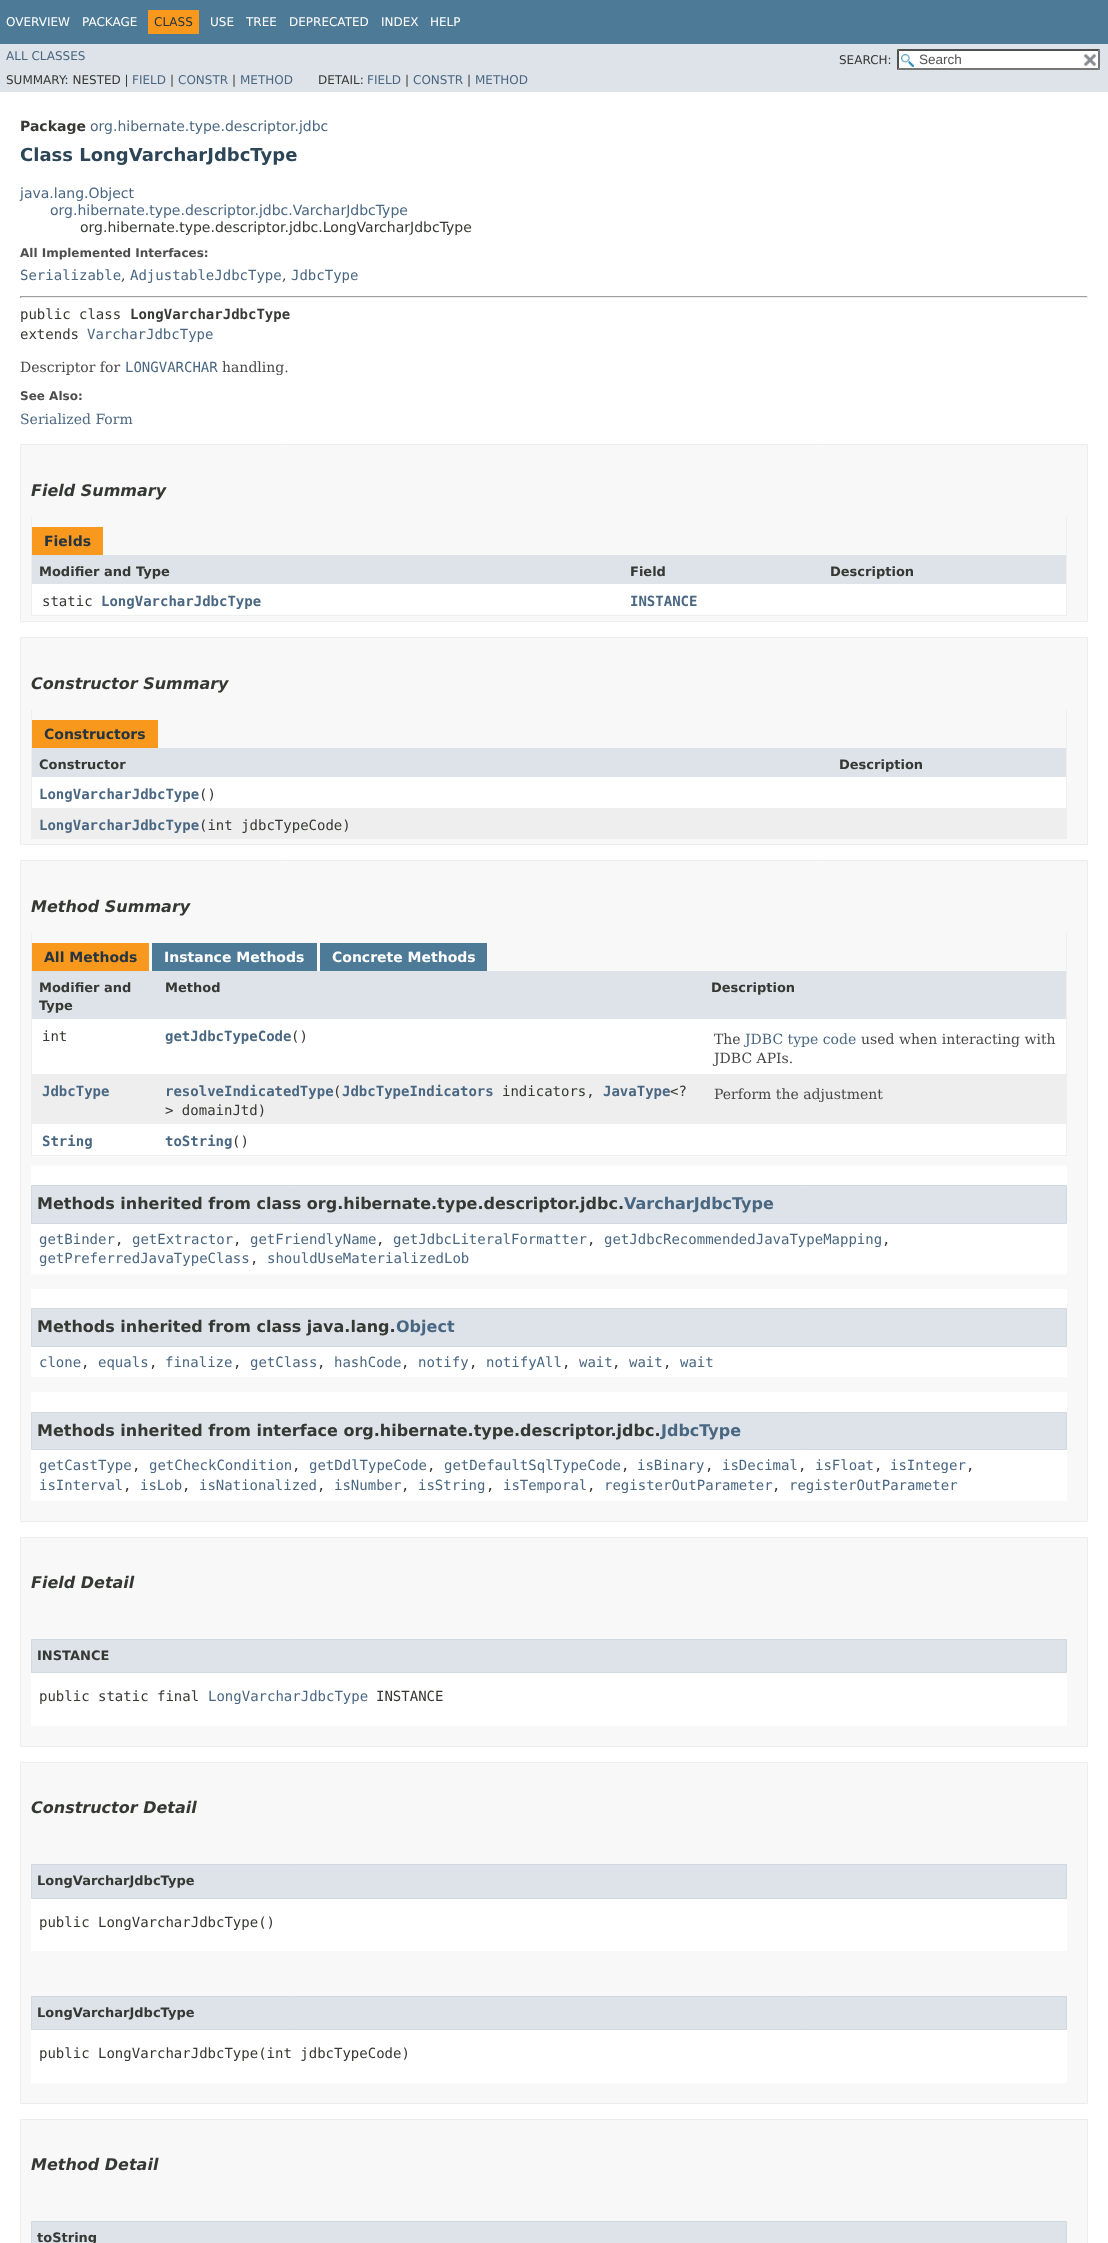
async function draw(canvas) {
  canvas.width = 1108;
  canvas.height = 2243;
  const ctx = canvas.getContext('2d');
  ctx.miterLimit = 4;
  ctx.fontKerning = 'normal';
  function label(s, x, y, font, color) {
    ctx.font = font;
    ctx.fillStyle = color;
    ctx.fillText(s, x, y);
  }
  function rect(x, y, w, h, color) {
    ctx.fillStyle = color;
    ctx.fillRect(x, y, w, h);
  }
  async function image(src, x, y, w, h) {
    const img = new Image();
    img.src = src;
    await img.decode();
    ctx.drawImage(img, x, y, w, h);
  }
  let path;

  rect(0, 0, 1108, 2243, '#fff');
  rect(0, 0, 1108, 44, '#4d7a97');
  label('OVERVIEW', 6, 26, '12px DejaVu Sans', '#fff');
  label('PACKAGE', 82, 26, '12px DejaVu Sans', '#fff');
  rect(148, 10, 51, 24, '#f8981d');
  label('CLASS', 154, 26, '12px DejaVu Sans', '#253441');
  label('USE', 210, 26, '12px DejaVu Sans', '#fff');
  label('TREE', 246, 26, '12px DejaVu Sans', '#fff');
  label('DEPRECATED', 289, 26, '12px DejaVu Sans', '#fff');
  label('INDEX', 381, 26, '12px DejaVu Sans', '#fff');
  label('HELP', 430, 26, '12px DejaVu Sans', '#fff');
  rect(0, 44, 1108, 48, '#dee3e9');
  label('ALL CLASSES', 6, 60, '12px DejaVu Sans', '#4a6782');
  label('SEARCH:', 839, 64, '12px DejaVu Sans', '#353833');
  rect(897, 49, 203, 21, '#fff');
  await image('assets/img1.png', 901, 54, 13, 13);
  ctx.fillStyle = '#4f4f4f';
  path = new Path2D('M897 49H1100L1098 51H899Z');
  ctx.fill(path);
  ctx.fillStyle = '#767676';
  path = new Path2D('M1100 49V70L1098 68V51Z');
  ctx.fill(path);
  path = new Path2D('M1100 70H897L899 68H1098Z');
  ctx.fill(path);
  ctx.fillStyle = '#4f4f4f';
  path = new Path2D('M897 70V49L899 51V68Z');
  ctx.fill(path);
  label('Search', 919, 64, '13.5px Liberation Sans', '#545454');
  await image('assets/img2.png', 1083, 54, 14, 12);
  label('SUMMARY: NESTED |', 6, 84, '12px DejaVu Sans', '#353833');
  label('FIELD', 132, 84, '12px DejaVu Sans', '#4a6782');
  label('|', 170, 84, '12px DejaVu Sans', '#353833');
  label('CONSTR', 178, 84, '12px DejaVu Sans', '#4a6782');
  label('|', 232, 84, '12px DejaVu Sans', '#353833');
  label('METHOD', 240, 84, '12px DejaVu Sans', '#4a6782');
  label('DETAIL:', 318, 84, '12px DejaVu Sans', '#353833');
  label('FIELD', 367, 84, '12px DejaVu Sans', '#4a6782');
  label('|', 405, 84, '12px DejaVu Sans', '#353833');
  label('CONSTR', 413, 84, '12px DejaVu Sans', '#4a6782');
  label('|', 467, 84, '12px DejaVu Sans', '#353833');
  label('METHOD', 475, 84, '12px DejaVu Sans', '#4a6782');
  label('Package', 20, 131, 'bold 14px DejaVu Sans', '#353833');
  label('org.hibernate.type.descriptor.jdbc', 90, 131, '14px DejaVu Sans', '#4a6782');
  label('Class LongVarcharJdbcType', 20, 161, 'bold 18px DejaVu Sans', '#2c4557');
  label('java.lang.Object', 20, 198, '14px DejaVu Sans', '#4a6782');
  label('org.hibernate.type.descriptor.jdbc.VarcharJdbcType', 50, 215, '14px DejaVu Sans', '#4a6782');
  label('org.hibernate.type.descriptor.jdbc.LongVarcharJdbcType', 80, 232, '14px DejaVu Sans', '#353833');
  label('All Implemented Interfaces:', 20, 257, 'bold 12px DejaVu Sans', '#4e4e4e');
  label('Serializable', 20, 280, '14px DejaVu Sans Mono', '#4a6782');
  label(',', 121, 280, '14px DejaVu Serif', '#353833');
  label('AdjustableJdbcType', 130, 280, '14px DejaVu Sans Mono', '#4a6782');
  label(',', 282, 280, '14px DejaVu Serif', '#353833');
  label('JdbcType', 291, 280, '14px DejaVu Sans Mono', '#4a6782');
  rect(20, 296, 1068, 1, '#9f9f9f');
  rect(1087, 296, 1, 2, '#eee');
  rect(20, 297, 1068, 1, '#eee');
  rect(20, 296, 1, 2, '#9f9f9f');
  label('public class', 20, 319, '14px DejaVu Sans Mono', '#353833');
  label('LongVarcharJdbcType', 130, 319, 'bold 14px DejaVu Sans Mono', '#353833');
  label('extends', 20, 339, '14px DejaVu Sans Mono', '#353833');
  label('VarcharJdbcType', 87, 339, '14px DejaVu Sans Mono', '#4a6782');
  label('Descriptor for', 20, 372, '14px DejaVu Serif', '#474747');
  label('LONGVARCHAR', 125, 372, '14px DejaVu Sans Mono', '#4a6782');
  label('handling.', 222, 372, '14px DejaVu Serif', '#474747');
  label('See Also:', 20, 400, 'bold 12px DejaVu Sans', '#4e4e4e');
  label('Serialized Form', 20, 424, '14px DejaVu Serif', '#4a6782');
  ctx.fillStyle = '#f8f8f8';
  ctx.beginPath();
  ctx.rect(20.5, 444.5, 1067, 177);
  ctx.fill();
  ctx.strokeStyle = '#ededed';
  ctx.stroke();
  label('Field Summary', 31, 496, 'italic bold 16px DejaVu Sans', '#353833');
  rect(1066, 517, 1, 99, '#eee');
  rect(31, 615, 1036, 1, '#eee');
  rect(31, 517, 1, 99, '#eee');
  rect(32, 527, 71, 28, '#f8981d');
  label('Fields', 44, 546, 'bold 14px DejaVu Sans', '#253441');
  rect(32, 555, 1034, 29, '#dee3e9');
  label('Modifier and Type', 39, 576, 'bold 13px DejaVu Sans', '#353833');
  label('Field', 630, 576, 'bold 13px DejaVu Sans', '#353833');
  label('Description', 830, 576, 'bold 13px DejaVu Sans', '#353833');
  rect(32, 584, 1034, 31, '#fff');
  label('static', 42, 606, '14px DejaVu Sans Mono', '#353833');
  label('LongVarcharJdbcType', 101, 606, 'bold 14px DejaVu Sans Mono', '#4a6782');
  label('INSTANCE', 630, 606, 'bold 14px DejaVu Sans Mono', '#4a6782');
  ctx.fillStyle = '#f8f8f8';
  ctx.beginPath();
  ctx.rect(20.5, 637.5, 1067, 207);
  ctx.fill();
  ctx.stroke();
  label('Constructor Summary', 31, 689, 'italic bold 16px DejaVu Sans', '#353833');
  rect(1066, 710, 1, 129, '#eee');
  rect(31, 838, 1036, 1, '#eee');
  rect(31, 710, 1, 129, '#eee');
  rect(32, 720, 126, 28, '#f8981d');
  label('Constructors', 44, 739, 'bold 14px DejaVu Sans', '#253441');
  rect(32, 748, 1034, 29, '#dee3e9');
  label('Constructor', 39, 769, 'bold 13px DejaVu Sans', '#353833');
  label('Description', 839, 769, 'bold 13px DejaVu Sans', '#353833');
  rect(32, 777, 1034, 31, '#fff');
  label('LongVarcharJdbcType', 39, 799, 'bold 14px DejaVu Sans Mono', '#4a6782');
  label('()', 199, 799, '14px DejaVu Sans Mono', '#353833');
  rect(32, 808, 1034, 30, '#eeeeef');
  label('LongVarcharJdbcType', 39, 830, 'bold 14px DejaVu Sans Mono', '#4a6782');
  label('(int jdbcTypeCode)', 199, 830, '14px DejaVu Sans Mono', '#353833');
  ctx.fillStyle = '#f8f8f8';
  ctx.beginPath();
  ctx.rect(20.5, 860.5, 1067, 661);
  ctx.fill();
  ctx.stroke();
  label('Method Summary', 31, 912, 'italic bold 16px DejaVu Sans', '#353833');
  rect(1066, 933, 1, 223, '#eee');
  rect(31, 1155, 1036, 1, '#eee');
  rect(31, 933, 1, 223, '#eee');
  rect(32, 943, 117, 28, '#f8981d');
  label('All Methods', 44, 962, 'bold 14px DejaVu Sans', '#253441');
  rect(152, 943, 165, 28, '#4d7a97');
  label('Instance Methods', 164, 962, 'bold 14px DejaVu Sans', '#fff');
  rect(320, 943, 167, 28, '#4d7a97');
  label('Concrete Methods', 332, 962, 'bold 14px DejaVu Sans', '#fff');
  rect(32, 971, 1034, 48, '#dee3e9');
  label('Modifier and', 39, 992, 'bold 13px DejaVu Sans', '#353833');
  label('Type', 39, 1010, 'bold 13px DejaVu Sans', '#353833');
  label('Method', 165, 992, 'bold 13px DejaVu Sans', '#353833');
  label('Description', 711, 992, 'bold 13px DejaVu Sans', '#353833');
  rect(32, 1019, 1034, 55, '#fff');
  label('int', 42, 1041, '14px DejaVu Sans Mono', '#353833');
  label('getJdbcTypeCode', 165, 1041, 'bold 14px DejaVu Sans Mono', '#4a6782');
  label('()', 291, 1041, '14px DejaVu Sans Mono', '#353833');
  label('The', 714, 1044, '14px DejaVu Serif', '#474747');
  label('JDBC type code', 745, 1044, '14px DejaVu Serif', '#4a6782');
  label('used when interacting with', 861, 1044, '14px DejaVu Serif', '#474747');
  label('JDBC APIs.', 714, 1063, '14px DejaVu Serif', '#474747');
  rect(32, 1074, 1034, 50, '#eeeeef');
  label('JdbcType', 42, 1096, 'bold 14px DejaVu Sans Mono', '#4a6782');
  label('resolveIndicatedType JdbcTypeIndicators', 165, 1096, 'bold 14px DejaVu Sans Mono', '#4a6782');
  label('(', 333, 1096, '14px DejaVu Sans Mono', '#353833');
  label('indicators,', 502, 1096, '14px DejaVu Sans Mono', '#353833');
  label('JavaType', 603, 1096, 'bold 14px DejaVu Sans Mono', '#4a6782');
  label('<?', 670, 1096, '14px DejaVu Sans Mono', '#353833');
  label('> domainJtd)', 165, 1115, '14px DejaVu Sans Mono', '#353833');
  label('Perform the adjustment', 714, 1099, '14px DejaVu Serif', '#474747');
  rect(32, 1124, 1034, 31, '#fff');
  label('String', 42, 1146, 'bold 14px DejaVu Sans Mono', '#4a6782');
  label('toString', 165, 1146, 'bold 14px DejaVu Sans Mono', '#4a6782');
  label('()', 232, 1146, '14px DejaVu Sans Mono', '#353833');
  rect(31, 1166, 1036, 108, '#fff');
  ctx.fillStyle = '#dee3e9';
  ctx.beginPath();
  ctx.rect(31.5, 1185.5, 1035, 38);
  ctx.fill();
  ctx.strokeStyle = '#d0d9e0';
  ctx.stroke();
  label('Methods inherited from class org.hibernate.type.descriptor.jdbc.', 37, 1209, 'bold 16px DejaVu Sans', '#353833');
  label('VarcharJdbcType', 624, 1209, 'bold 16px DejaVu Sans', '#4a6782');
  label('getBinder', 39, 1244, '14px DejaVu Sans Mono', '#4a6782');
  label(',', 115, 1244, '14px DejaVu Sans Mono', '#353833');
  label('getExtractor', 132, 1244, '14px DejaVu Sans Mono', '#4a6782');
  label(',', 233, 1244, '14px DejaVu Sans Mono', '#353833');
  label('getFriendlyName', 250, 1244, '14px DejaVu Sans Mono', '#4a6782');
  label(',', 376, 1244, '14px DejaVu Sans Mono', '#353833');
  label('getJdbcLiteralFormatter', 393, 1244, '14px DejaVu Sans Mono', '#4a6782');
  label(',', 587, 1244, '14px DejaVu Sans Mono', '#353833');
  label('getJdbcRecommendedJavaTypeMapping', 604, 1244, '14px DejaVu Sans Mono', '#4a6782');
  label(',', 882, 1244, '14px DejaVu Sans Mono', '#353833');
  label('getPreferredJavaTypeClass', 39, 1263, '14px DejaVu Sans Mono', '#4a6782');
  label(',', 250, 1263, '14px DejaVu Sans Mono', '#353833');
  label('shouldUseMaterializedLob', 267, 1263, '14px DejaVu Sans Mono', '#4a6782');
  rect(31, 1289, 1036, 88, '#fff');
  ctx.fillStyle = '#dee3e9';
  ctx.beginPath();
  ctx.rect(31.5, 1308.5, 1035, 38);
  ctx.fill();
  ctx.stroke();
  label('Methods inherited from class java.lang.', 37, 1332, 'bold 16px DejaVu Sans', '#353833');
  label('Object', 396, 1332, 'bold 16px DejaVu Sans', '#4a6782');
  label('clone', 39, 1367, '14px DejaVu Sans Mono', '#4a6782');
  label(',', 81, 1367, '14px DejaVu Sans Mono', '#353833');
  label('equals', 98, 1367, '14px DejaVu Sans Mono', '#4a6782');
  label(',', 149, 1367, '14px DejaVu Sans Mono', '#353833');
  label('finalize', 165, 1367, '14px DejaVu Sans Mono', '#4a6782');
  label(',', 233, 1367, '14px DejaVu Sans Mono', '#353833');
  label('getClass', 250, 1367, '14px DejaVu Sans Mono', '#4a6782');
  label(',', 317, 1367, '14px DejaVu Sans Mono', '#353833');
  label('hashCode', 334, 1367, '14px DejaVu Sans Mono', '#4a6782');
  label(',', 401, 1367, '14px DejaVu Sans Mono', '#353833');
  label('notify', 418, 1367, '14px DejaVu Sans Mono', '#4a6782');
  label(',', 469, 1367, '14px DejaVu Sans Mono', '#353833');
  label('notifyAll', 486, 1367, '14px DejaVu Sans Mono', '#4a6782');
  label(',', 562, 1367, '14px DejaVu Sans Mono', '#353833');
  label('wait', 579, 1367, '14px DejaVu Sans Mono', '#4a6782');
  label(',', 612, 1367, '14px DejaVu Sans Mono', '#353833');
  label('wait', 629, 1367, '14px DejaVu Sans Mono', '#4a6782');
  label(',', 663, 1367, '14px DejaVu Sans Mono', '#353833');
  label('wait', 680, 1367, '14px DejaVu Sans Mono', '#4a6782');
  rect(31, 1392, 1036, 109, '#fff');
  ctx.fillStyle = '#dee3e9';
  ctx.beginPath();
  ctx.rect(31.5, 1412.5, 1035, 37);
  ctx.fill();
  ctx.stroke();
  label('Methods inherited from interface org.hibernate.type.descriptor.jdbc.', 37, 1436, 'bold 16px DejaVu Sans', '#353833');
  label('JdbcType', 661, 1436, 'bold 16px DejaVu Sans', '#4a6782');
  label('getCastType', 39, 1470, '14px DejaVu Sans Mono', '#4a6782');
  label(',', 132, 1470, '14px DejaVu Sans Mono', '#353833');
  label('getCheckCondition', 149, 1470, '14px DejaVu Sans Mono', '#4a6782');
  label(',', 292, 1470, '14px DejaVu Sans Mono', '#353833');
  label('getDdlTypeCode', 309, 1470, '14px DejaVu Sans Mono', '#4a6782');
  label(',', 427, 1470, '14px DejaVu Sans Mono', '#353833');
  label('getDefaultSqlTypeCode', 444, 1470, '14px DejaVu Sans Mono', '#4a6782');
  label(',', 621, 1470, '14px DejaVu Sans Mono', '#353833');
  label('isBinary', 637, 1470, '14px DejaVu Sans Mono', '#4a6782');
  label(',', 705, 1470, '14px DejaVu Sans Mono', '#353833');
  label('isDecimal', 722, 1470, '14px DejaVu Sans Mono', '#4a6782');
  label(',', 798, 1470, '14px DejaVu Sans Mono', '#353833');
  label('isFloat', 815, 1470, '14px DejaVu Sans Mono', '#4a6782');
  label(',', 874, 1470, '14px DejaVu Sans Mono', '#353833');
  label('isInteger', 890, 1470, '14px DejaVu Sans Mono', '#4a6782');
  label(',', 966, 1470, '14px DejaVu Sans Mono', '#353833');
  label('isInterval', 39, 1490, '14px DejaVu Sans Mono', '#4a6782');
  label(',', 123, 1490, '14px DejaVu Sans Mono', '#353833');
  label('isLob', 140, 1490, '14px DejaVu Sans Mono', '#4a6782');
  label(',', 182, 1490, '14px DejaVu Sans Mono', '#353833');
  label('isNationalized', 199, 1490, '14px DejaVu Sans Mono', '#4a6782');
  label(',', 317, 1490, '14px DejaVu Sans Mono', '#353833');
  label('isNumber', 334, 1490, '14px DejaVu Sans Mono', '#4a6782');
  label(',', 401, 1490, '14px DejaVu Sans Mono', '#353833');
  label('isString', 418, 1490, '14px DejaVu Sans Mono', '#4a6782');
  label(',', 486, 1490, '14px DejaVu Sans Mono', '#353833');
  label('isTemporal', 503, 1490, '14px DejaVu Sans Mono', '#4a6782');
  label(',', 587, 1490, '14px DejaVu Sans Mono', '#353833');
  label('registerOutParameter', 604, 1490, '14px DejaVu Sans Mono', '#4a6782');
  label(',', 772, 1490, '14px DejaVu Sans Mono', '#353833');
  label('registerOutParameter', 789, 1490, '14px DejaVu Sans Mono', '#4a6782');
  ctx.fillStyle = '#f8f8f8';
  ctx.beginPath();
  ctx.rect(20.5, 1537.5, 1067, 209);
  ctx.fill();
  ctx.strokeStyle = '#ededed';
  ctx.stroke();
  label('Field Detail', 31, 1588, 'italic bold 16px DejaVu Sans', '#353833');
  rect(31, 1673, 1036, 53, '#fff');
  ctx.fillStyle = '#dee3e9';
  ctx.beginPath();
  ctx.rect(31.5, 1639.5, 1035, 33);
  ctx.fill();
  ctx.strokeStyle = '#d0d9e0';
  ctx.stroke();
  label('INSTANCE', 37, 1660, 'bold 13px DejaVu Sans', '#353833');
  label('public static final', 39, 1701, '14px DejaVu Sans Mono', '#353833');
  label('LongVarcharJdbcType', 208, 1701, '14px DejaVu Sans Mono', '#4a6782');
  label('INSTANCE', 376, 1701, '14px DejaVu Sans Mono', '#353833');
  ctx.fillStyle = '#f8f8f8';
  ctx.beginPath();
  ctx.rect(20.5, 1762.5, 1067, 341);
  ctx.fill();
  ctx.strokeStyle = '#ededed';
  ctx.stroke();
  label('Constructor Detail', 31, 1813, 'italic bold 16px DejaVu Sans', '#353833');
  rect(31, 1899, 1036, 52, '#fff');
  ctx.fillStyle = '#dee3e9';
  ctx.beginPath();
  ctx.rect(31.5, 1864.5, 1035, 34);
  ctx.fill();
  ctx.strokeStyle = '#d0d9e0';
  ctx.stroke();
  label('LongVarcharJdbcType', 37, 1885, 'bold 13px DejaVu Sans', '#353833');
  label('public LongVarcharJdbcType()', 39, 1927, '14px DejaVu Sans Mono', '#353833');
  rect(31, 2030, 1036, 53, '#fff');
  ctx.fillStyle = '#dee3e9';
  ctx.beginPath();
  ctx.rect(31.5, 1996.5, 1035, 33);
  ctx.fill();
  ctx.stroke();
  label('LongVarcharJdbcType', 37, 2017, 'bold 13px DejaVu Sans', '#353833');
  label('public LongVarcharJdbcType(int jdbcTypeCode)', 39, 2058, '14px DejaVu Sans Mono', '#353833');
  ctx.fillStyle = '#f8f8f8';
  ctx.beginPath();
  ctx.rect(20.5, 2119.5, 1067, 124);
  ctx.fill();
  ctx.strokeStyle = '#ededed';
  ctx.stroke();
  label('Method Detail', 31, 2170, 'italic bold 16px DejaVu Sans', '#353833');
  ctx.fillStyle = '#dee3e9';
  ctx.beginPath();
  ctx.rect(31.5, 2221.5, 1035, 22);
  ctx.fill();
  ctx.strokeStyle = '#d0d9e0';
  ctx.stroke();
  label('toString', 37, 2242, 'bold 13px DejaVu Sans', '#353833');
}

draw(document.querySelector('canvas'));
